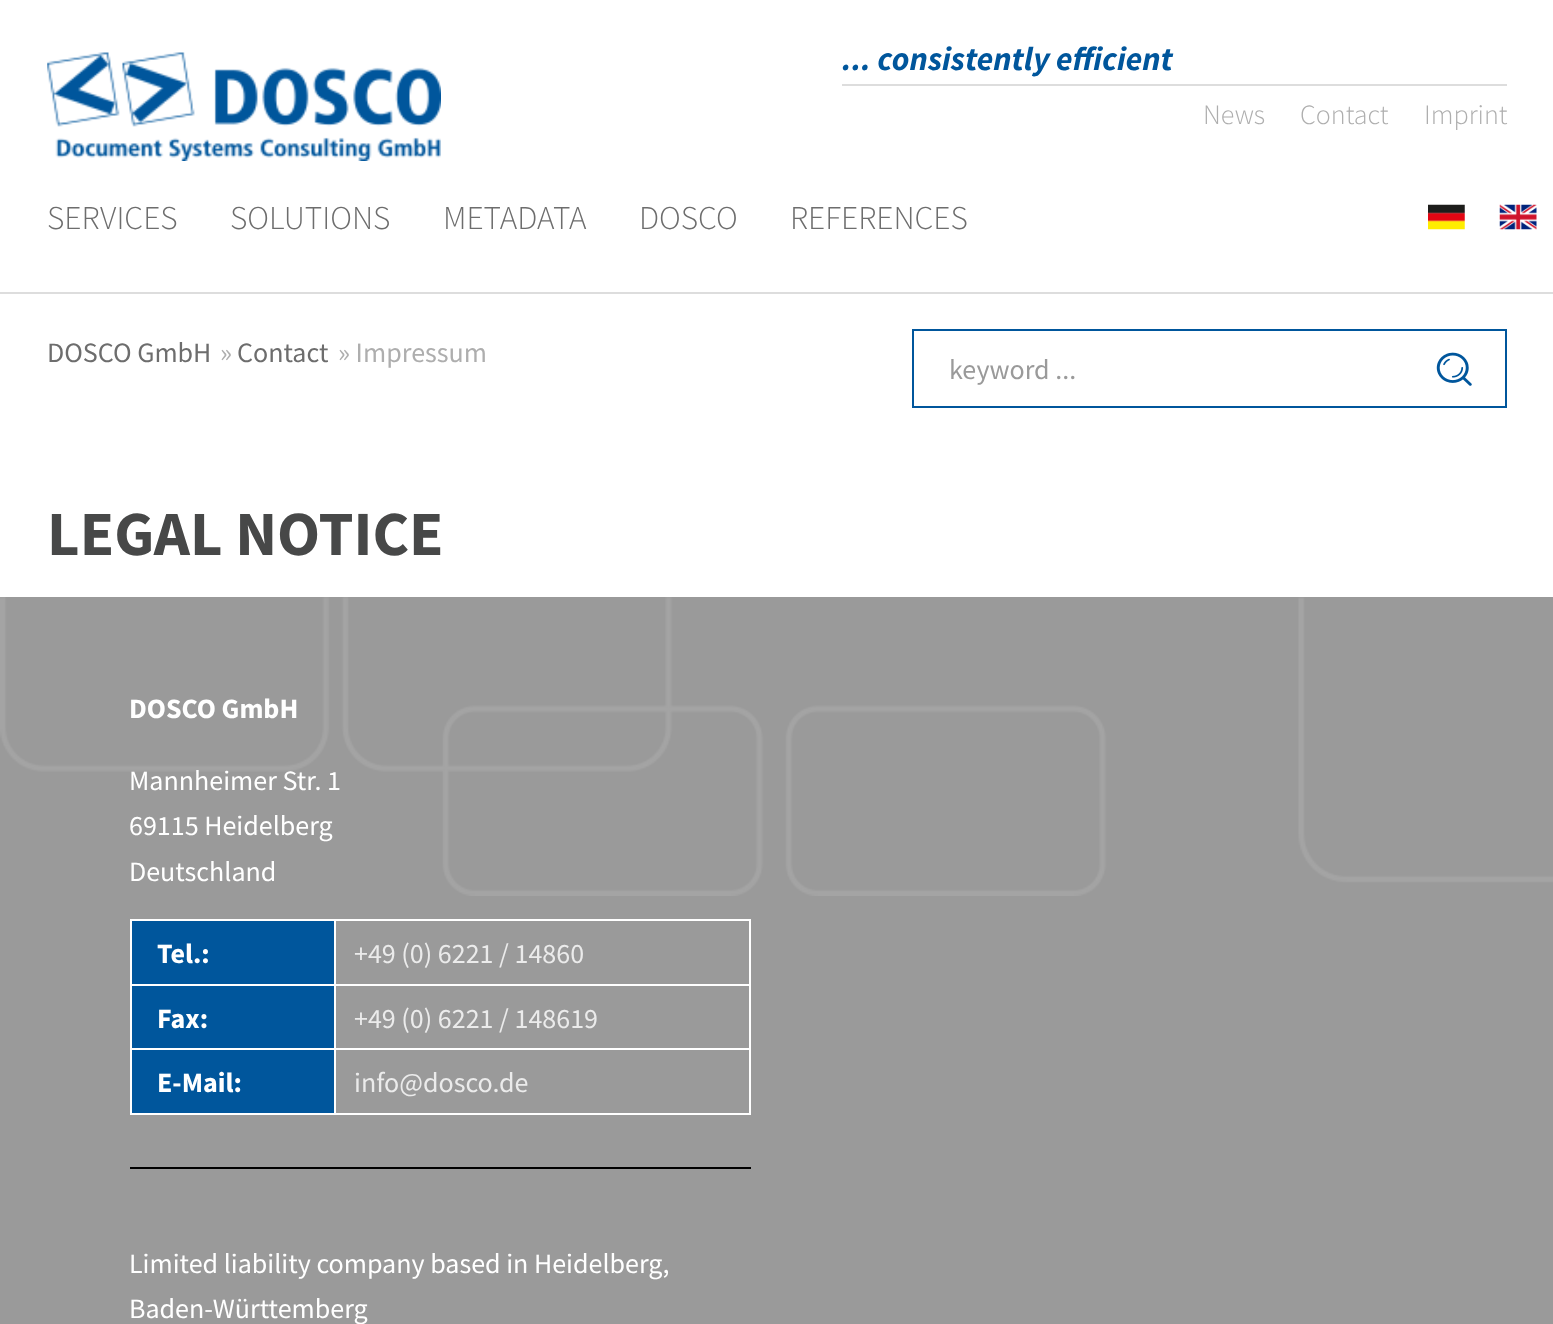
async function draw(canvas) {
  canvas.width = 1553;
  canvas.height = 1324;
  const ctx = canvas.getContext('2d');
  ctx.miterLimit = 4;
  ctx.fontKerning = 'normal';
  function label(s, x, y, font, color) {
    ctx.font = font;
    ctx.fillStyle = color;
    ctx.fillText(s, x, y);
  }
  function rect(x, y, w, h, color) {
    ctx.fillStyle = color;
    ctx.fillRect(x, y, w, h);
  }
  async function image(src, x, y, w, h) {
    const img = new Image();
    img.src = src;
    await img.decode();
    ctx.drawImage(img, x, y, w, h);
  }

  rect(0, 0, 1553, 1324, '#fff');
  rect(0, 292, 1553, 2, '#ddd');
  rect(842, 84, 665, 2, '#ddd');
  label('... consistently efficient', 842, 70, 'italic bold 33.25px Source Sans Pro', '#00569c');
  label('News', 1203, 124, '300 28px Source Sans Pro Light', '#aeaeae');
  label('Contact', 1300, 124, '300 28px Source Sans Pro Light', '#aeaeae');
  label('Imprint', 1424, 124, '300 28px Source Sans Pro Light', '#aeaeae');
  label('SERVICES', 47, 229, '300 33.25px Source Sans Pro Light', '#6d6d6d');
  label('SOLUTIONS', 230, 229, '300 33.25px Source Sans Pro Light', '#6d6d6d');
  label('METADATA', 443, 229, '300 33.25px Source Sans Pro Light', '#6d6d6d');
  label('DOSCO', 639, 229, '300 33.25px Source Sans Pro Light', '#6d6d6d');
  label('REFERENCES', 790, 229, '300 33.25px Source Sans Pro Light', '#6d6d6d');
  await image('assets/img1.png', 1428, 204, 37, 26);
  await image('assets/img2.png', 1499, 204, 38, 26);
  await image('assets/img3.png', 47, 52, 394, 109);
  label('DOSCO GmbH', 47, 362, '28px Source Sans Pro', '#6d6d6d');
  label('»', 220, 362, '28px Source Sans Pro', '#aeaeae');
  label('Contact', 237, 362, '28px Source Sans Pro', '#6d6d6d');
  label('» Impressum', 338, 362, '28px Source Sans Pro', '#aeaeae');
  ctx.strokeStyle = '#00569c';
  ctx.lineWidth = 2;
  ctx.strokeRect(913, 330, 593, 77);
  label('keyword ...', 949, 379, '28px Source Sans Pro', '#9a9a9a');
  await image('assets/img4.png', 1436, 352, 36, 34);
  label('LEGAL NOTICE', 47, 555, 'bold 63px Source Sans Pro', '#474848');
  rect(0, 597, 1553, 727, '#9a9a9a');
  await image('assets/img5.png', 0, 597, 1553, 299);
  label('DOSCO GmbH', 129, 718, 'bold 28px Source Sans Pro', '#fff');
  label('Mannheimer Str. 1', 129, 790, '28px Source Sans Pro', '#fff');
  label('69115 Heidelberg', 129, 835, '28px Source Sans Pro', '#fff');
  label('Deutschland', 129, 881, '28px Source Sans Pro', '#fff');
  rect(130, 919, 621, 2, '#fff');
  rect(130, 984, 621, 2, '#fff');
  rect(130, 1048, 621, 2, '#fff');
  rect(749, 1048, 2, 67, '#fff');
  rect(749, 984, 2, 66, '#fff');
  rect(749, 919, 2, 66, '#fff');
  rect(130, 1113, 621, 2, '#fff');
  rect(130, 1048, 2, 67, '#fff');
  rect(130, 984, 2, 66, '#fff');
  rect(130, 919, 2, 66, '#fff');
  rect(132, 921, 202, 63, '#00569c');
  label('Tel.:', 157, 963, 'bold 28px Source Sans Pro', '#fff');
  label('+49 (0) 6221 / 14860', 354, 963, '28px Source Sans Pro', '#ebebeb');
  rect(132, 986, 202, 62, '#00569c');
  label('Fax:', 157, 1028, 'bold 28px Source Sans Pro', '#fff');
  label('+49 (0) 6221 / 148619', 354, 1028, '28px Source Sans Pro', '#ebebeb');
  rect(132, 1050, 202, 63, '#00569c');
  label('E-Mail:', 157, 1092, 'bold 28px Source Sans Pro', '#fff');
  rect(334, 919, 2, 196, '#fff');
  label('info@dosco.', 354, 1092, '28px Source Sans Pro', '#ebebeb');
  label('de', 499, 1092, '28px Source Sans Pro', '#ebebeb');
  rect(130, 1167, 621, 2, '#000');
  label('Limited liability company based in Heidelberg,', 129, 1273, '28px Source Sans Pro', '#fff');
  label('Baden-Württemberg', 129, 1318, '28px Source Sans Pro', '#fff');
}

draw(document.querySelector('canvas'));
